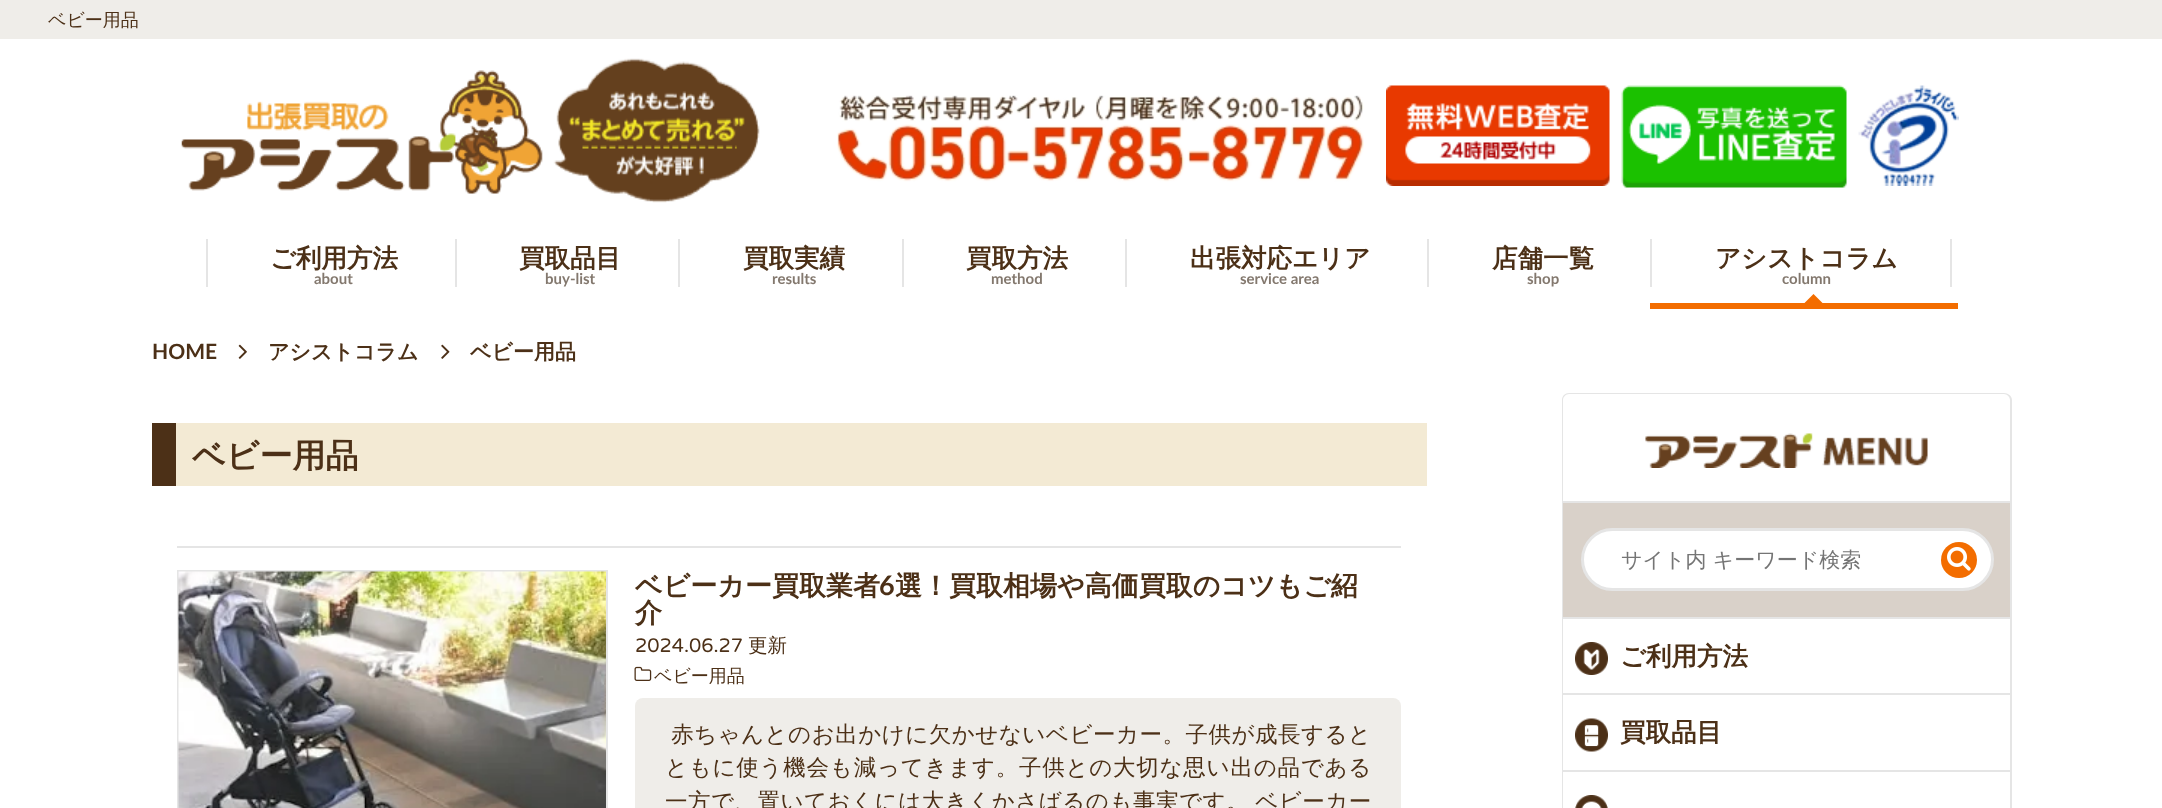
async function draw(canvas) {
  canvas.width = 2162;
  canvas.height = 808;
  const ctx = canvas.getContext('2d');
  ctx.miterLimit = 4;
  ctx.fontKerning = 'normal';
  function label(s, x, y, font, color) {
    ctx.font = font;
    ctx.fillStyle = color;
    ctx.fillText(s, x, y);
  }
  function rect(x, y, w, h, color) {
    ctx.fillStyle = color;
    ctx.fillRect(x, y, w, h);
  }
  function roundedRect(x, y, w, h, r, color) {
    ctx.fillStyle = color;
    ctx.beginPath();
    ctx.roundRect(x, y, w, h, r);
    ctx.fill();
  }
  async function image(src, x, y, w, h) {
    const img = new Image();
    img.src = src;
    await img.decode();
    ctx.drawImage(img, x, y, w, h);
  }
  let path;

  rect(0, 0, 2162, 808, '#fff');
  rect(0, 0, 2162, 39, '#efede9');
  label('ベビー用品', 48, 26, '500 18px WenQuanYi Zen Hei', '#4c3017');
  await image('assets/img1.png', 181, 58, 579, 145);
  await image('assets/img2.png', 837, 95, 527, 87);
  await image('assets/img3.png', 1386, 85, 224, 101);
  await image('assets/img4.png', 1621, 85, 226, 103);
  await image('assets/img5.png', 1858, 85, 101, 101);
  rect(206, 239, 2, 48, '#e5e5e5');
  label('ご利用方法', 270, 267, 'bold 25.5px WenQuanYi Zen Hei', '#4c3017');
  label('about', 314, 284, 'bold 15px Lato', '#83786e');
  rect(455, 239, 2, 48, '#e5e5e5');
  label('買取品目', 519, 267, 'bold 25.5px WenQuanYi Zen Hei', '#4c3017');
  label('buy-list', 545, 284, 'bold 15px Lato', '#83786e');
  rect(678, 239, 2, 48, '#e5e5e5');
  label('買取実績', 743, 267, 'bold 25.5px WenQuanYi Zen Hei', '#4c3017');
  label('results', 772, 284, 'bold 15px Lato', '#83786e');
  rect(902, 239, 2, 48, '#e5e5e5');
  label('買取方法', 966, 267, 'bold 25.5px WenQuanYi Zen Hei', '#4c3017');
  label('method', 991, 284, 'bold 15px Lato', '#83786e');
  rect(1125, 239, 2, 48, '#e5e5e5');
  label('出張対応エリア', 1190, 267, 'bold 25.5px WenQuanYi Zen Hei', '#4c3017');
  label('service area', 1240, 284, 'bold 15px Lato', '#83786e');
  rect(1427, 239, 2, 48, '#e5e5e5');
  label('店舗一覧', 1492, 267, 'bold 25.5px WenQuanYi Zen Hei', '#4c3017');
  label('shop', 1527, 284, 'bold 15px Lato', '#83786e');
  rect(1650, 239, 2, 48, '#e5e5e5');
  label('アシストコラム', 1715, 267, 'bold 25.5px WenQuanYi Zen Hei', '#4c3017');
  label('column', 1782, 284, 'bold 15px Lato', '#83786e');
  rect(1950, 239, 2, 48, '#e5e5e5');
  rect(1650, 303, 308, 6, '#f36d00');
  path = new Path2D('M1822.5 303H1804.5L1813.5 294Z');
  ctx.fill(path);
  label('HOME', 152, 359, 'bold 21px Lato', '#4c3017');
  await image('assets/img6.png', 238, 344, 9, 15);
  label('アシストコラム', 268, 359, 'bold 21px WenQuanYi Zen Hei', '#4c3017');
  await image('assets/img7.png', 441, 344, 9, 15);
  label('ベビー用品', 470, 359, 'bold 21px WenQuanYi Zen Hei', '#4c3017');
  rect(176, 423, 1251, 63, '#f3ead4');
  rect(152, 423, 24, 63, '#4c3017');
  label('ベビー用品', 192, 467, 'bold 33px WenQuanYi Zen Hei', '#4c3017');
  rect(177, 546, 1224, 2, '#e5e5e5');
  ctx.strokeStyle = '#e5e5e5';
  ctx.lineWidth = 2;
  ctx.strokeRect(178, 571, 429, 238);
  await image('assets/img8.png', 178, 571, 428, 237);
  label('ベビーカー買取業者', 635, 595, 'bold 27px WenQuanYi Zen Hei', '#4c3017');
  label('6', 879, 595, 'bold 27px Lato', '#4c3017');
  label('選！買取相場や高価買取のコツもご紹', 895, 595, 'bold 27px WenQuanYi Zen Hei', '#4c3017');
  label('介', 635, 622, 'bold 27px WenQuanYi Zen Hei', '#4c3017');
  label('2024.06.27', 635, 652, '19.5px Varela Round', '#4c3017');
  label('更新', 748, 652, '500 19.5px WenQuanYi Zen Hei', '#4c3017');
  await image('assets/img9.png', 634, 666, 18, 15);
  label('ベビー用品', 654, 682, '500 18px WenQuanYi Zen Hei', '#4c3017');
  roundedRect(635, 698, 766, 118, 8, '#efede9');
  ctx.letterSpacing = '0.5px';
  label('赤ちゃんとのお出かけに欠かせないベビーカー。子供が成長すると', 671, 742, '500 22.5px WenQuanYi Zen Hei', '#4c3017');
  ctx.letterSpacing = '0.75px';
  label('ともに使う機会も減ってきます。子供との大切な思い出の品である', 665, 775, '500 22.5px WenQuanYi Zen Hei', '#4c3017');
  ctx.letterSpacing = '0.5px';
  ctx.wordSpacing = '-1px';
  label('一方で、置いておくには大きくかさばるのも事実です。 ベビーカー', 665, 809, '500 22.5px WenQuanYi Zen Hei', '#4c3017');
  ctx.fillStyle = '#e5e5e5';
  path = new Path2D('M1569 393H2004C2008 393 2012 396 2012 400V501H1562V400C1562 396 1565 393 1569 393ZM1569 394H2004C2007 394 2010 397 2010 400V501H1563V400C1563 397 1566 394 1569 394Z');
  ctx.fill(path, 'evenodd');
  await image('assets/img10.png', 1645, 433, 283, 35);
  path = new Path2D('M1562 501H2012V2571C2012 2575 2008 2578 2004 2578H1569C1565 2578 1562 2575 1562 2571ZM1563 501H2010V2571C2010 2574 2007 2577 2004 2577H1569C1566 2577 1563 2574 1563 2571Z');
  ctx.fill(path, 'evenodd');
  rect(1563, 503, 447, 114, '#d9d1c9');
  rect(1563, 501, 447, 2, '#e5e5e5');
  ctx.fillStyle = '#fff';
  ctx.beginPath();
  ctx.roundRect(1582.5, 529.5, 410, 60, 30);
  ctx.fill();
  ctx.lineWidth = 3;
  ctx.stroke();
  ctx.letterSpacing = '0px';
  ctx.wordSpacing = '0px';
  label('サイト内 キーワード検索', 1621, 567, '500 21px WenQuanYi Zen Hei', '#757575');
  ctx.fillStyle = '#f36d00';
  ctx.beginPath();
  ctx.arc(1959, 560, 18, 0, 2 * Math.PI);
  ctx.fill();
  await image('assets/img11.png', 1947, 547, 24, 24);
  rect(1563, 617, 447, 2, '#e5e5e5');
  await image('assets/img12.png', 1575, 642, 33, 33);
  label('ご利用方法', 1620, 665, 'bold 25.5px WenQuanYi Zen Hei', '#4c3017');
  rect(1563, 693, 447, 2, '#e5e5e5');
  await image('assets/img13.png', 1575, 718, 33, 34);
  label('買取品目', 1620, 741, 'bold 25.5px WenQuanYi Zen Hei', '#4c3017');
  rect(1563, 770, 447, 2, '#e5e5e5');
  await image('assets/img14.png', 1575, 795, 33, 13);
}

draw(document.querySelector('canvas'));
